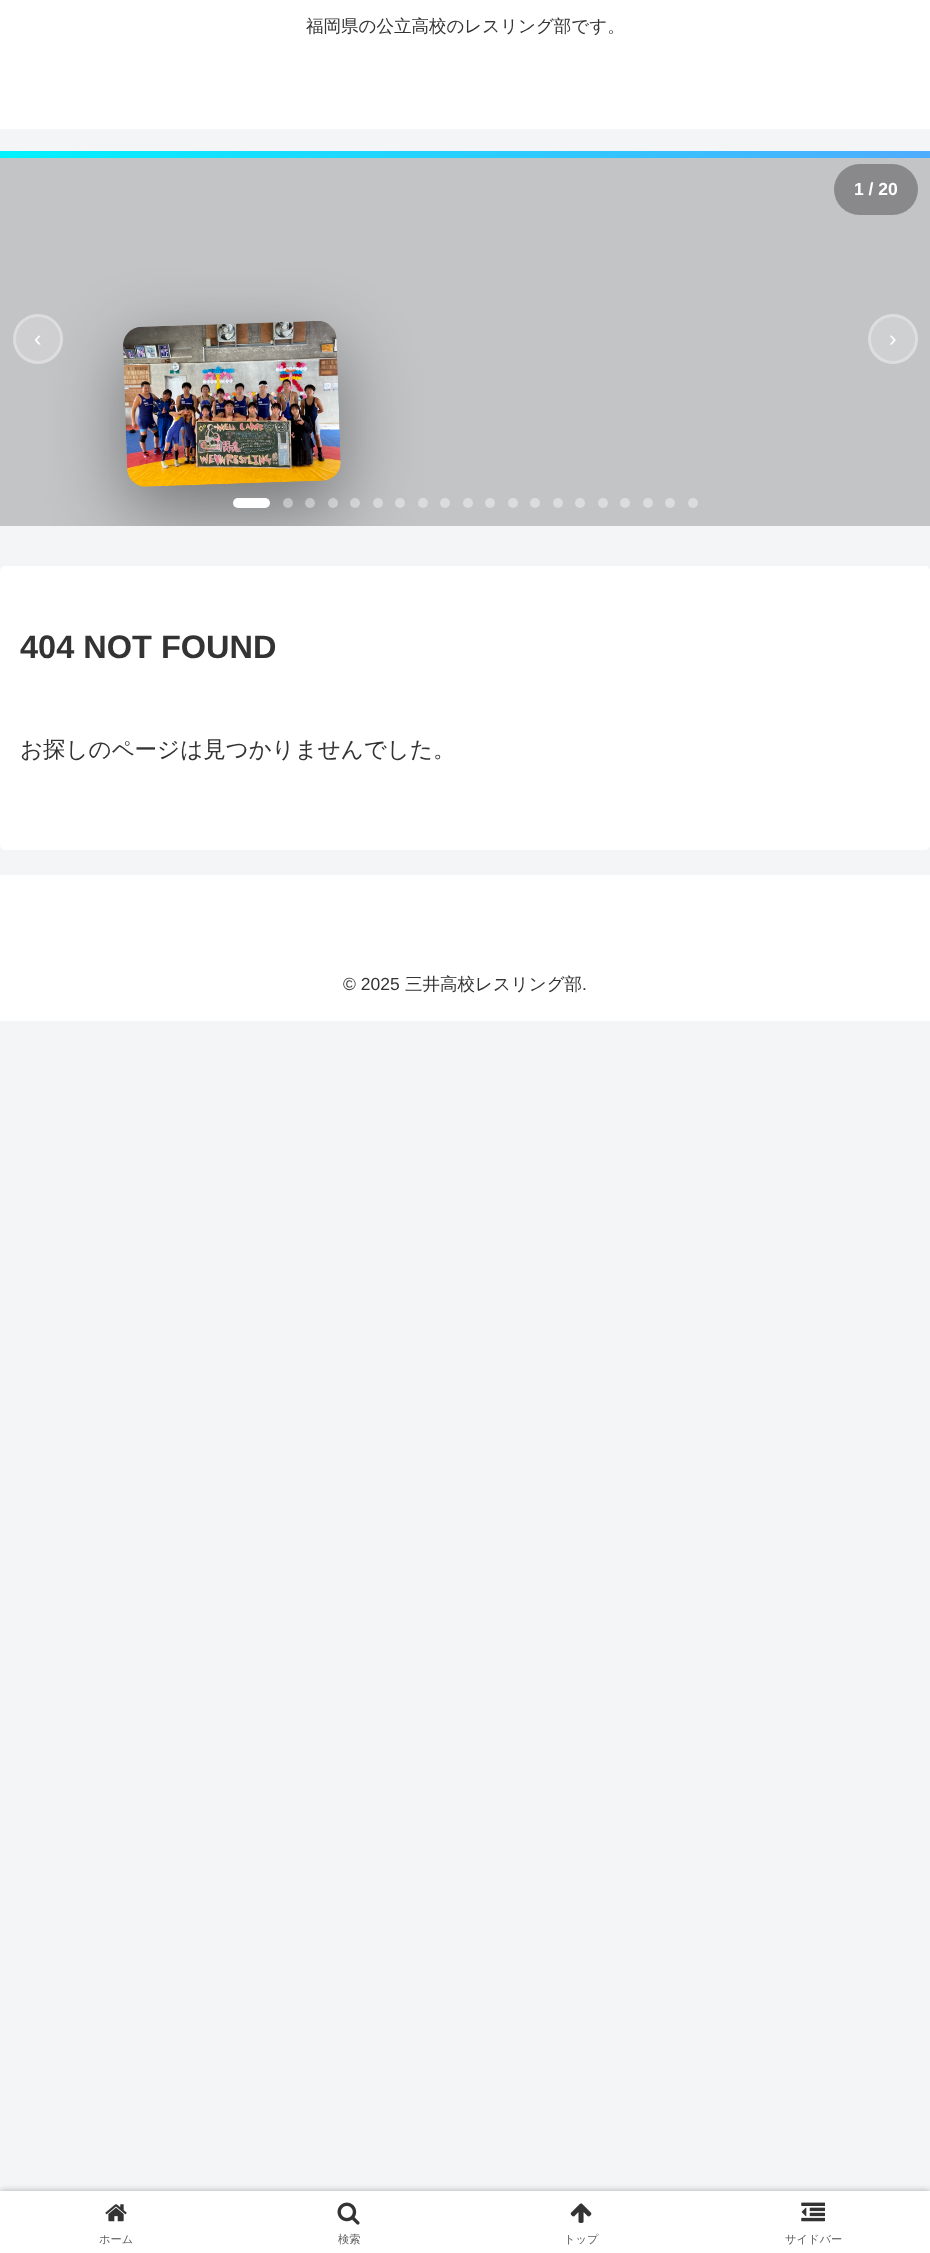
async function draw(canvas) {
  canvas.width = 930;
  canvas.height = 2253;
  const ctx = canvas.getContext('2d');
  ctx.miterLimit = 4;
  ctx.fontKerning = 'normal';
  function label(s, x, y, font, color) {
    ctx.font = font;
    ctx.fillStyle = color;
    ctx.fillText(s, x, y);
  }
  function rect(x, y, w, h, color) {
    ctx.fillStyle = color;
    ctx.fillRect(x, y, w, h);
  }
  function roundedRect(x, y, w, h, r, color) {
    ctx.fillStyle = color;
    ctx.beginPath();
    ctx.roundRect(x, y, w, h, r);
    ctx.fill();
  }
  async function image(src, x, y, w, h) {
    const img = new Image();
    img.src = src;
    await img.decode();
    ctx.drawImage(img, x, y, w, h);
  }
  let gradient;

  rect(0, 0, 930, 2253, '#f4f5f7');
  rect(0, 0, 930, 129, '#fff');
  label('福岡県の公立高校のレスリング部です。', 306, 32, '500 17.5px WenQuanYi Zen Hei', '#333');
  gradient = ctx.createLinearGradient(0, 154, 930, 154);
  gradient.addColorStop(0, '#00f2fe');
  gradient.addColorStop(1, '#4facfe');
  ctx.fillStyle = gradient;
  ctx.fillRect(0, 151, 930, 7);
  rect(0, 158, 930, 368, '#c3c4c6');
  roundedRect(834, 164, 84, 51, 25.5, '#89898b');
  label('1 / 20', 854, 195, 'bold 17.5px Liberation Sans', '#fff');
  roundedRect(0, 566, 930, 284, 5, '#fff');
  ctx.save();
  ctx.beginPath();
  ctx.rect(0, 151, 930, 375);
  ctx.clip();
  ctx.fillStyle = '#00000066';
  ctx.filter = 'blur(37.5px)';
  ctx.beginPath();
  ctx.roundRect(125, 349, 215, 160, 19);
  ctx.fill();
  ctx.filter = 'none';
  ctx.restore();
  await image('assets/img1.png', 123, 321, 218, 166);
  ctx.fillStyle = '#cfcfd1';
  ctx.beginPath();
  ctx.arc(38, 339, 25, 0, 2 * Math.PI);
  ctx.fill();
  ctx.beginPath();
  ctx.arc(38, 339, 23.5, 0, 2 * Math.PI);
  ctx.strokeStyle = '#ffffff4d';
  ctx.lineWidth = 3;
  ctx.stroke();
  label('‹', 34, 346, '22.5px Liberation Sans', '#fff');
  ctx.fillStyle = '#cfd0d1';
  ctx.beginPath();
  ctx.arc(893, 339, 25, 0, 2 * Math.PI);
  ctx.fill();
  ctx.beginPath();
  ctx.arc(893, 339, 23.5, 0, 2 * Math.PI);
  ctx.stroke();
  label('›', 889, 346, '22.5px Liberation Sans', '#fff');
  roundedRect(233, 498, 37, 10, 5, '#fff');
  ctx.fillStyle = '#ffffff66';
  ctx.beginPath();
  ctx.arc(288, 503, 5, 0, 2 * Math.PI);
  ctx.fill();
  ctx.beginPath();
  ctx.arc(310, 503, 5, 0, 2 * Math.PI);
  ctx.fill();
  ctx.beginPath();
  ctx.arc(333, 503, 5, 0, 2 * Math.PI);
  ctx.fill();
  ctx.beginPath();
  ctx.arc(355, 503, 5, 0, 2 * Math.PI);
  ctx.fill();
  ctx.beginPath();
  ctx.arc(378, 503, 5, 0, 2 * Math.PI);
  ctx.fill();
  ctx.fillStyle = '#dadadb';
  ctx.beginPath();
  ctx.arc(400, 503, 5, 0, 2 * Math.PI);
  ctx.fill();
  ctx.fillStyle = '#dbdbdc';
  ctx.beginPath();
  ctx.arc(423, 503, 5, 0, 2 * Math.PI);
  ctx.fill();
  ctx.fillStyle = '#dbdcdd';
  ctx.beginPath();
  ctx.arc(445, 503, 5, 0, 2 * Math.PI);
  ctx.fill();
  ctx.beginPath();
  ctx.arc(468, 503, 5, 0, 2 * Math.PI);
  ctx.fill();
  ctx.beginPath();
  ctx.arc(490, 503, 5, 0, 2 * Math.PI);
  ctx.fill();
  ctx.beginPath();
  ctx.arc(513, 503, 5, 0, 2 * Math.PI);
  ctx.fill();
  ctx.beginPath();
  ctx.arc(535, 503, 5, 0, 2 * Math.PI);
  ctx.fill();
  ctx.beginPath();
  ctx.arc(558, 503, 5, 0, 2 * Math.PI);
  ctx.fill();
  ctx.beginPath();
  ctx.arc(580, 503, 5, 0, 2 * Math.PI);
  ctx.fill();
  ctx.beginPath();
  ctx.arc(603, 503, 5, 0, 2 * Math.PI);
  ctx.fill();
  ctx.beginPath();
  ctx.arc(625, 503, 5, 0, 2 * Math.PI);
  ctx.fill();
  ctx.beginPath();
  ctx.arc(648, 503, 5, 0, 2 * Math.PI);
  ctx.fill();
  ctx.beginPath();
  ctx.arc(670, 503, 5, 0, 2 * Math.PI);
  ctx.fill();
  ctx.beginPath();
  ctx.arc(693, 503, 5, 0, 2 * Math.PI);
  ctx.fill();
  label('404 NOT FOUND', 20, 658, 'bold 32.5px Liberation Sans', '#333');
  label('お探しのページは見つかりませんでした。', 20, 757, '500 22.5px WenQuanYi Zen Hei', '#333');
  rect(0, 875, 930, 146, '#fff');
  label('© 2025', 343, 990, '17.5px Liberation Sans', '#333');
  label('三井高校レスリング部', 405, 990, '500 17.5px WenQuanYi Zen Hei', '#333');
  label('.', 582, 990, '17.5px Liberation Sans', '#333');
  ctx.fillStyle = '#a9a9a9';
  ctx.filter = 'blur(3px)';
  ctx.beginPath();
  ctx.rect(0, 2191, 930, 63);
  ctx.fill();
  ctx.filter = 'none';
  rect(0, 2191, 930, 62, '#fff');
  await image('assets/img2.png', 105, 2204, 22, 18);
  label('ホーム', 99, 2243, '500 11.25px WenQuanYi Zen Hei', '#5c5c5c');
  await image('assets/img3.png', 337, 2202, 23, 23);
  label('検索', 338, 2243, '500 11.25px WenQuanYi Zen Hei', '#5c5c5c');
  await image('assets/img4.png', 570, 2203, 22, 20);
  label('トップ', 564, 2243, '500 11.25px WenQuanYi Zen Hei', '#5c5c5c');
  await image('assets/img5.png', 801, 2202, 24, 20);
  label('サイドバー', 785, 2243, '500 11.25px WenQuanYi Zen Hei', '#5c5c5c');
}

draw(document.querySelector('canvas'));
